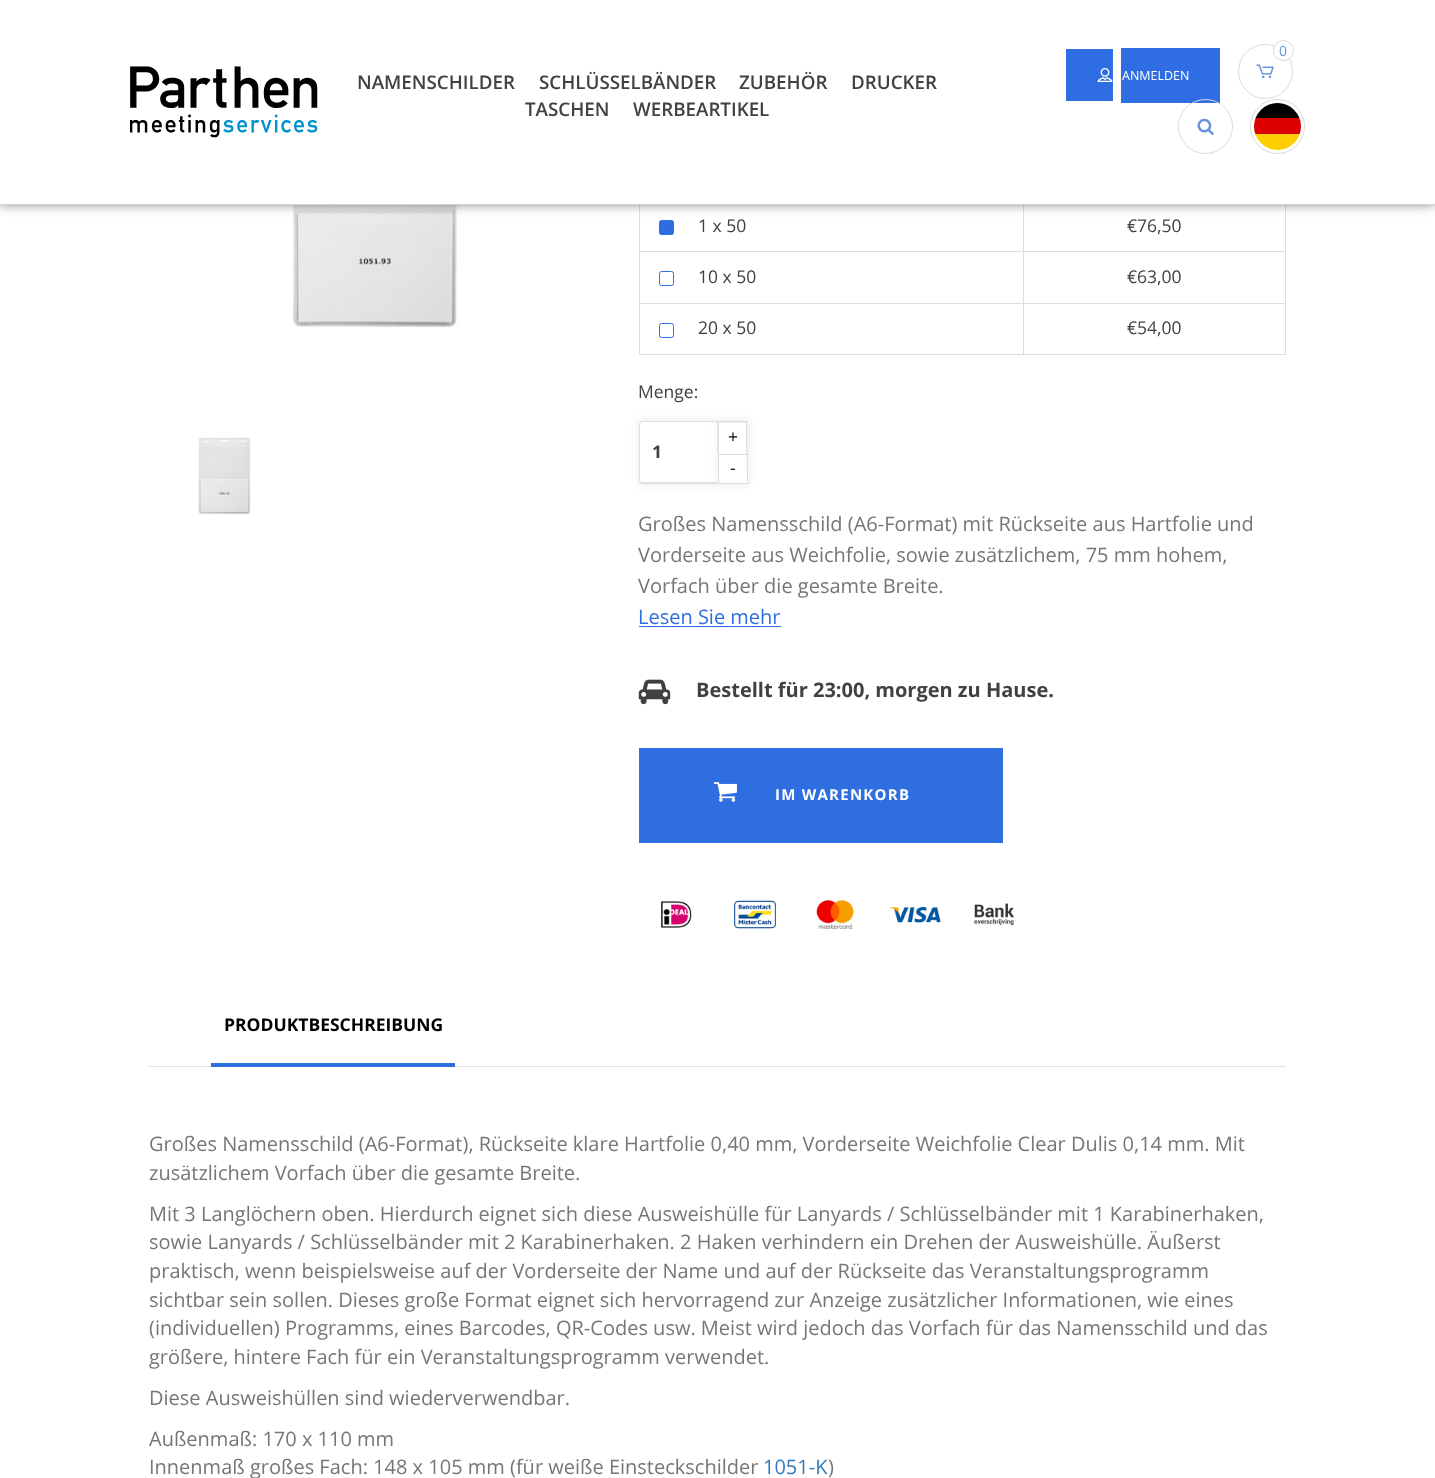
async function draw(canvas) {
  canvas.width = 1435;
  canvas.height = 1478;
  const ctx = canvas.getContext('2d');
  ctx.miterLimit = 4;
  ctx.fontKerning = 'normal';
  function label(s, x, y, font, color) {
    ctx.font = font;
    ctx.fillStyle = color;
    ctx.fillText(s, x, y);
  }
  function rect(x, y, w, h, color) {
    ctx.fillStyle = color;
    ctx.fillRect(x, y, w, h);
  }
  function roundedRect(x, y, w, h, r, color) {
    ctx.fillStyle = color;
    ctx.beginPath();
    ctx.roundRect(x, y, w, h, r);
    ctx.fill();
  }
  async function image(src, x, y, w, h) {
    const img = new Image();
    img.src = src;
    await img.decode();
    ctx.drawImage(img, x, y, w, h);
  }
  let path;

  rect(0, 0, 1435, 1478, '#fff');
  await image('assets/img5.png', 292, 205, 168, 123);
  ctx.fillStyle = '#2e6de1';
  ctx.beginPath();
  ctx.roundRect(659.5, 220.5, 14, 14, 2);
  ctx.fill();
  ctx.strokeStyle = '#2e6ce1';
  ctx.stroke();
  rect(1023, 251, 263, 1, '#ddd');
  rect(1023, 303, 263, 1, '#ddd');
  rect(1285, 303, 1, 52, '#ddd');
  rect(1023, 354, 263, 1, '#ddd');
  rect(1023, 303, 1, 52, '#ddd');
  rect(639, 303, 385, 1, '#ddd');
  rect(1023, 251, 1, 53, '#ddd');
  rect(639, 251, 385, 1, '#ddd');
  rect(1023, 200, 1, 53, '#ddd');
  rect(639, 354, 385, 1, '#ddd');
  rect(639, 303, 1, 52, '#ddd');
  rect(639, 200, 1, 104, '#ddd');
  rect(1285, 200, 1, 104, '#ddd');
  ctx.fillStyle = '#797979';
  ctx.filter = 'blur(6px)';
  ctx.beginPath();
  ctx.rect(-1, -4, 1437, 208);
  ctx.fill();
  ctx.filter = 'none';
  rect(0, 0, 1435, 204, '#fff');
  rect(0, 204, 1435, 1, '#d2d2d2');
  await image('assets/img1.png', 130, 66, 188, 72);
  label('NAMENSCHILDER', 357, 89, '600 18.75px Open Sans', '#414141');
  label('SCHLÜSSELBÄNDER', 539, 89, '600 18.75px Open Sans', '#414141');
  label('ZUBEHÖR', 739, 89, '600 18.75px Open Sans', '#414141');
  label('DRUCKER', 851, 89, '600 18.75px Open Sans', '#414141');
  label('TASCHEN', 525, 116, '600 18.75px Open Sans', '#414141');
  label('WERBEARTIKEL', 633, 116, '600 18.75px Open Sans', '#414141');
  ctx.beginPath();
  ctx.arc(1265.5, 71.5, 27, 0, 2 * Math.PI);
  ctx.strokeStyle = '#dadada';
  ctx.stroke();
  await image('assets/img2.png', 1256, 64, 18, 15);
  ctx.fillStyle = '#fff';
  ctx.beginPath();
  ctx.arc(1283.5, 50.5, 10, 0, 2 * Math.PI);
  ctx.fill();
  ctx.stroke();
  label('0', 1279, 56, '14px Open Sans', '#6794dd');
  rect(1066, 49, 47, 52, '#2e6ee2');
  await image('assets/img3.png', 1097, 68, 16, 14);
  rect(1121, 48, 99, 55, '#2e6ee2');
  label('ANMELDEN', 1122, 80, '12.5px Open Sans', '#fff');
  ctx.beginPath();
  ctx.arc(1205.5, 126.5, 27, 0, 2 * Math.PI);
  ctx.stroke();
  await image('assets/img4.png', 1197, 118, 17, 17);
  ctx.beginPath();
  ctx.arc(1277.5, 126.5, 27, 0, 2 * Math.PI);
  ctx.stroke();
  ctx.save();
  ctx.beginPath();
  ctx.roundRect(1254, 103, 47, 47, 23.5);
  ctx.clip();
  rect(1255, 103, 45, 15, '#000');
  rect(1254, 118, 47, 16, '#d00');
  rect(1255, 134, 45, 16, '#ffce00');
  ctx.restore();
  await image('assets/img6.png', 198, 437, 53, 78);
  label('1 x 50', 698, 232, '17.5px Open Sans', '#414141');
  label('€76,50', 1127, 232, '17.5px Open Sans', '#414141');
  ctx.beginPath();
  ctx.roundRect(659.5, 271.5, 14, 14, 2);
  ctx.strokeStyle = '#2e6ce1';
  ctx.stroke();
  label('10 x 50', 698, 283, '17.5px Open Sans', '#414141');
  label('€63,00', 1127, 283, '17.5px Open Sans', '#414141');
  ctx.beginPath();
  ctx.roundRect(659.5, 323.5, 14, 14, 2);
  ctx.stroke();
  label('20 x 50', 698, 334, '17.5px Open Sans', '#414141');
  label('€54,00', 1127, 334, '17.5px Open Sans', '#414141');
  label('Menge:', 638, 398, '17.5px Open Sans', '#414141');
  ctx.fillStyle = '#eee';
  ctx.filter = 'blur(4px)';
  ctx.beginPath();
  ctx.roundRect(638, 420, 83, 65, 5);
  ctx.fill();
  ctx.filter = 'none';
  roundedRect(639, 421, 81, 63, 4, '#fff');
  ctx.fillStyle = '#dedede';
  path = new Path2D('M642 421H716C718 421 720 423 720 425V480C720 482 718 484 716 484H642C640 484 639 482 639 480V425C639 423 640 421 642 421ZM642 422H716C718 422 720 424 720 425V480C720 481 718 482 716 482H642C641 482 640 481 640 480V425C640 424 641 422 642 422Z');
  ctx.fill(path, 'evenodd');
  label('1', 652, 458, 'bold 17.5px Open Sans', '#414141');
  ctx.fillStyle = '#eee';
  ctx.filter = 'blur(4px)';
  ctx.beginPath();
  ctx.rect(718, 420, 32, 65);
  ctx.fill();
  ctx.filter = 'none';
  rect(718, 421, 30, 62, '#fff');
  ctx.fillStyle = '#dedede';
  path = new Path2D('M717.5 421H747.5L746 422.5H719Z');
  ctx.fill(path);
  ctx.fillStyle = '#22242626';
  path = new Path2D('M747.5 421V454H746V422.5ZM717.5 454V421L719 422.5V454Z');
  ctx.fill(path);
  label('+', 728, 443, '17.5px Open Sans', '#000');
  ctx.strokeStyle = '#dedede';
  ctx.strokeRect(718.5, 454.5, 29, 29);
  label('-', 730, 474, '17.5px Open Sans', '#000');
  label('Großes Namensschild (A6-Format) mit Rückseite aus Hartfolie und', 638, 531, '20px Open Sans', '#777676');
  label('Vorderseite aus Weichfolie, sowie zusätzlichem, 75 mm hohem,', 638, 562, '20px Open Sans', '#777676');
  label('Vorfach über die gesamte Breite.', 638, 593, '20px Open Sans', '#777676');
  label('Lesen Sie mehr', 638, 624, '20px Open Sans', '#2e6ee1');
  rect(639, 626, 142, 1, '#2e6ee1');
  await image('assets/img7.png', 638, 679, 33, 26);
  label('Bestellt für 23:00, morgen zu Hause.', 696, 697, 'bold 20px Open Sans', '#414141');
  rect(639, 748, 364, 95, '#2e6ee1');
  await image('assets/img8.png', 713, 782, 24, 20);
  ctx.letterSpacing = '1.25px';
  label('IM WARENKORB', 775, 800, 'bold 15px Open Sans', '#fff');
  await image('assets/img9.png', 661, 901, 31, 27);
  await image('assets/img10.png', 734, 900, 42, 29);
  await image('assets/img11.png', 816, 900, 38, 29);
  await image('assets/img12.png', 889, 907, 52, 16);
  await image('assets/img13.png', 974, 903, 41, 22);
  rect(149, 1066, 1137, 1, '#e2e2e2');
  rect(211, 1063, 244, 4, '#2e6ee1');
  ctx.letterSpacing = '0px';
  label('PRODUKTBESCHREIBUNG', 224, 1031, 'bold 17.5px Open Sans', '#000');
  label('Großes Namensschild (A6-Format), Rückseite klare Hartfolie 0,40 mm, Vorderseite Weichfolie Clear Dulis 0,14 mm. Mit', 149, 1151, '20px Open Sans', '#777676');
  label('zusätzlichem Vorfach über die gesamte Breite.', 149, 1180, '20px Open Sans', '#777676');
  label('Mit 3 Langlöchern oben. Hierdurch eignet sich diese Ausweishülle für Lanyards / Schlüsselbänder mit 1 Karabinerhaken,', 149, 1221, '20px Open Sans', '#777676');
  label('sowie Lanyards / Schlüsselbänder mit 2 Karabinerhaken. 2 Haken verhindern ein Drehen der Ausweishülle. Äußerst', 149, 1249, '20px Open Sans', '#777676');
  label('praktisch, wenn beispielsweise auf der Vorderseite der Name und auf der Rückseite das Veranstaltungsprogramm', 149, 1278, '20px Open Sans', '#777676');
  label('sichtbar sein sollen. Dieses große Format eignet sich hervorragend zur Anzeige zusätzlicher Informationen, wie eines', 149, 1307, '20px Open Sans', '#777676');
  label('(individuellen) Programms, eines Barcodes, QR-Codes usw. Meist wird jedoch das Vorfach für das Namensschild und das', 149, 1335, '20px Open Sans', '#777676');
  label('größere, hintere Fach für ein Veranstaltungsprogramm verwendet.', 149, 1364, '20px Open Sans', '#777676');
  label('Diese Ausweishüllen sind wiederverwendbar.', 149, 1405, '20px Open Sans', '#777676');
  label('Außenmaß: 170 x 110 mm', 149, 1446, '20px Open Sans', '#777676');
  label('Innenmaß großes Fach: 148 x 105 mm (für weiße Einsteckschilder', 149, 1474, '20px Open Sans', '#777676');
  label('1051-K', 763, 1474, '20px Open Sans', '#337ab7');
  label(')', 828, 1474, '20px Open Sans', '#777676');
}

draw(document.querySelector('canvas'));
